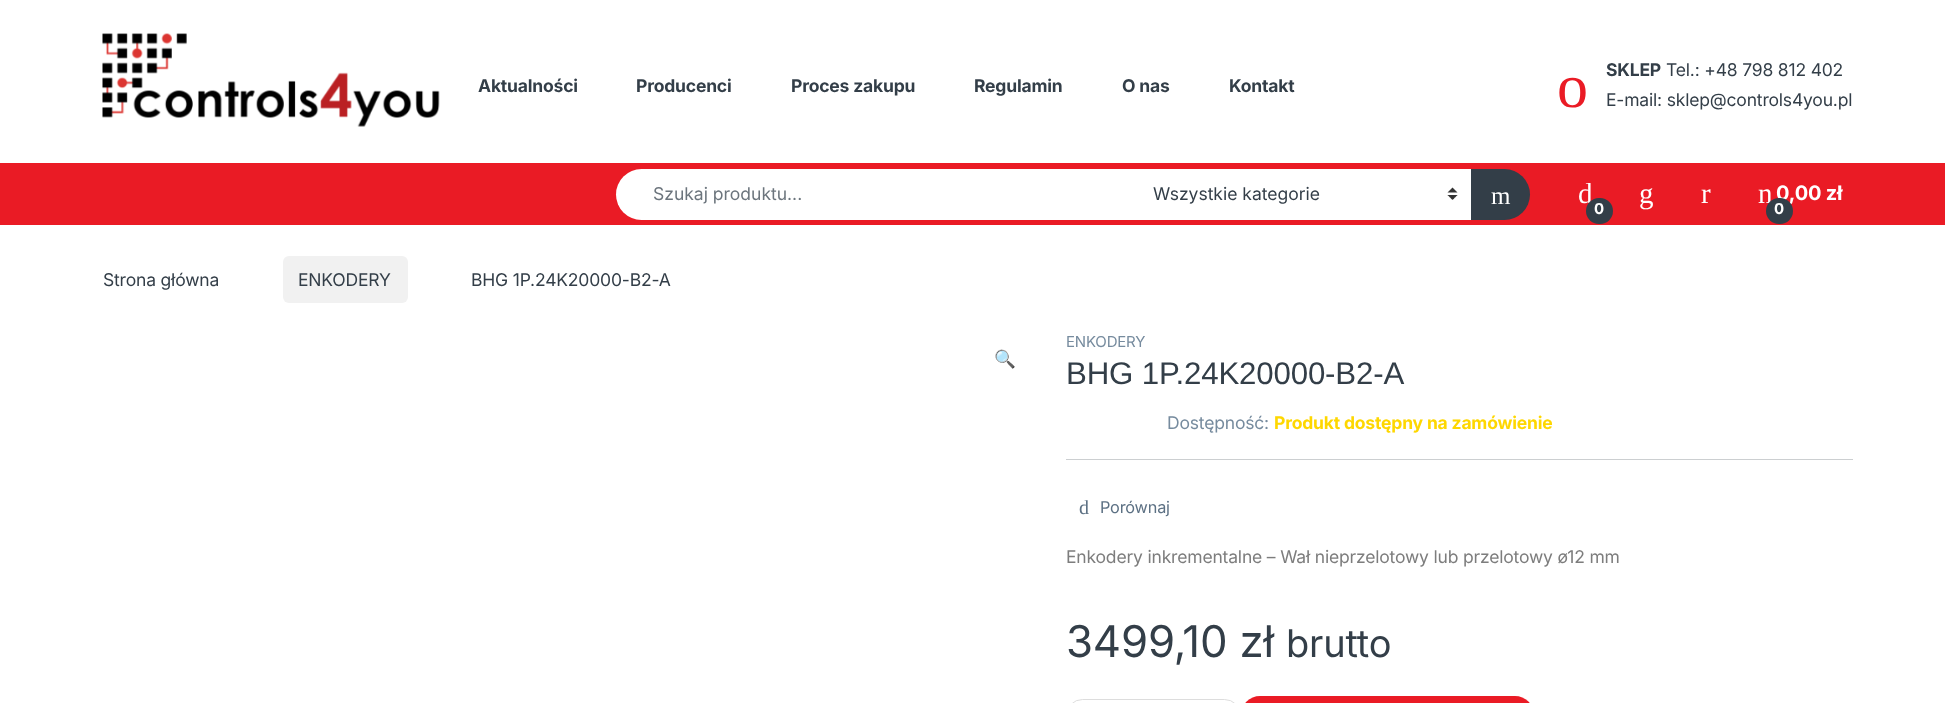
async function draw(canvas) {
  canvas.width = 1955;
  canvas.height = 703;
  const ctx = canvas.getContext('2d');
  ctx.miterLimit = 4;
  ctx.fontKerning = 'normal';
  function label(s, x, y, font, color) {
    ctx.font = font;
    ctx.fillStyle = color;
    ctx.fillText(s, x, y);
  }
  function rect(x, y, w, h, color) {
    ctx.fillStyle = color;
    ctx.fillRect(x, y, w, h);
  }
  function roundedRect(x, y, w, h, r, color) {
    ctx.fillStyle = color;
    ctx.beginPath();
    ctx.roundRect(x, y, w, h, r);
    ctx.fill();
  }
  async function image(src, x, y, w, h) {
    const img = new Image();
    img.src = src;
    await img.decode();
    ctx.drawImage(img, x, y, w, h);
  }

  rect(0, 0, 1955, 703, '#fff');
  await image('assets/img1.png', 102, 33, 338, 94);
  ctx.letterSpacing = '-0.18px';
  label('Aktualności', 478, 92, 'bold 17.5px Inter', '#333e48');
  label('Producenci', 636, 92, 'bold 17.5px Inter', '#333e48');
  label('Proces zakupu', 791, 92, 'bold 17.5px Inter', '#333e48');
  label('Regulamin', 974, 92, 'bold 17.5px Inter', '#333e48');
  label('O nas', 1122, 92, 'bold 17.5px Inter', '#333e48');
  label('Kontakt', 1229, 92, 'bold 17.5px Inter', '#333e48');
  label('o', 1557, 107, '62px Liberation Serif', '#ea1b25');
  label('SKLEP', 1606, 76, 'bold 17.5px Inter', '#333e48');
  label('Tel.: +48 798 812 402', 1666, 76, '17.5px Inter', '#333e48');
  label('E-mail: sklep@controls4you.pl', 1606, 106, '17.5px Inter', '#333e48');
  rect(0, 163, 1945, 62, '#ea1b25');
  ctx.fillStyle = '#fff';
  ctx.beginPath();
  ctx.roundRect(616, 169, 523, 51, [25.5, 0, 0, 25.5]);
  ctx.fill();
  ctx.letterSpacing = '0px';
  label('Szukaj produktu...', 653, 200, '17.5px Inter', '#6c757d');
  rect(1139, 169, 332, 51, '#fff');
  await image('assets/img2.png', 1447, 187, 11, 13);
  label('Wszystkie kategorie', 1153, 200, '17.5px Inter', '#333e48');
  ctx.beginPath();
  ctx.roundRect(1471, 169, 59, 51, [0, 25.5, 25.5, 0]);
  ctx.fill();
  label('m', 1491, 204, '25px Liberation Serif', '#fff');
  ctx.letterSpacing = '-0.18px';
  label('d', 1578, 203, '29px Liberation Serif', '#fff');
  roundedRect(1586, 198, 27, 26, 13, '#333e48');
  label('0', 1594, 214, 'bold 15px Inter', '#fff');
  label('g', 1639, 203, '29px Liberation Serif', '#fff');
  label('r', 1701, 203, '29px Liberation Serif', '#fff');
  label('n', 1758, 203, '29px Liberation Serif', '#fff');
  label('0,00 zł', 1776, 200, 'bold 20px Inter', '#fff');
  roundedRect(1766, 198, 27, 26, 13, '#333e48');
  label('0', 1774, 214, 'bold 15px Inter', '#fff');
  label('Strona główna', 103, 286, '17.5px Inter', '#333e48');
  roundedRect(283, 256, 125, 47, 6, '#f1f1f1');
  label('ENKODERY', 298, 286, '17.5px Inter', '#333e48');
  label('BHG 1P.24K20000-B2-A', 471, 286, '17.5px Inter', '#333e48');
  label('🔍', 994, 365, '17.5px Noto Color Emoji', '#333e48');
  label('ENKODERY', 1066, 347, '15px Inter', '#768b9e');
  label('BHG 1P.24K20000-B2-A', 1066, 384, '31.25px Liberation Sans', '#333e48');
  label('Dostępność:', 1167, 429, '17.5px Inter', '#768b9e');
  label('Produkt dostępny na zamówienie', 1274, 429, 'bold 17.5px Inter', '#fed700');
  rect(1066, 459, 787, 1, '#cccfd1');
  label('d', 1079, 514, '20px Liberation Serif', '#5d7184');
  label('Porównaj', 1100, 513, '16.25px Inter', '#5d7184');
  label('Enkodery inkrementalne – Wał nieprzelotowy lub przelotowy ø12 mm', 1066, 563, '17.5px Inter', '#7d7d7d');
  label('3499,10 zł', 1066, 657, '43.75px Inter', '#333e48');
  label('brutto', 1286, 657, '38px Inter', '#333e48');
  ctx.beginPath();
  ctx.roundRect(1066.5, 699.5, 174, 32, 27.5);
  ctx.strokeStyle = '#ddd';
  ctx.stroke();
  roundedRect(1241, 696, 293, 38, 31, '#ea1b25');
}

draw(document.querySelector('canvas'));
